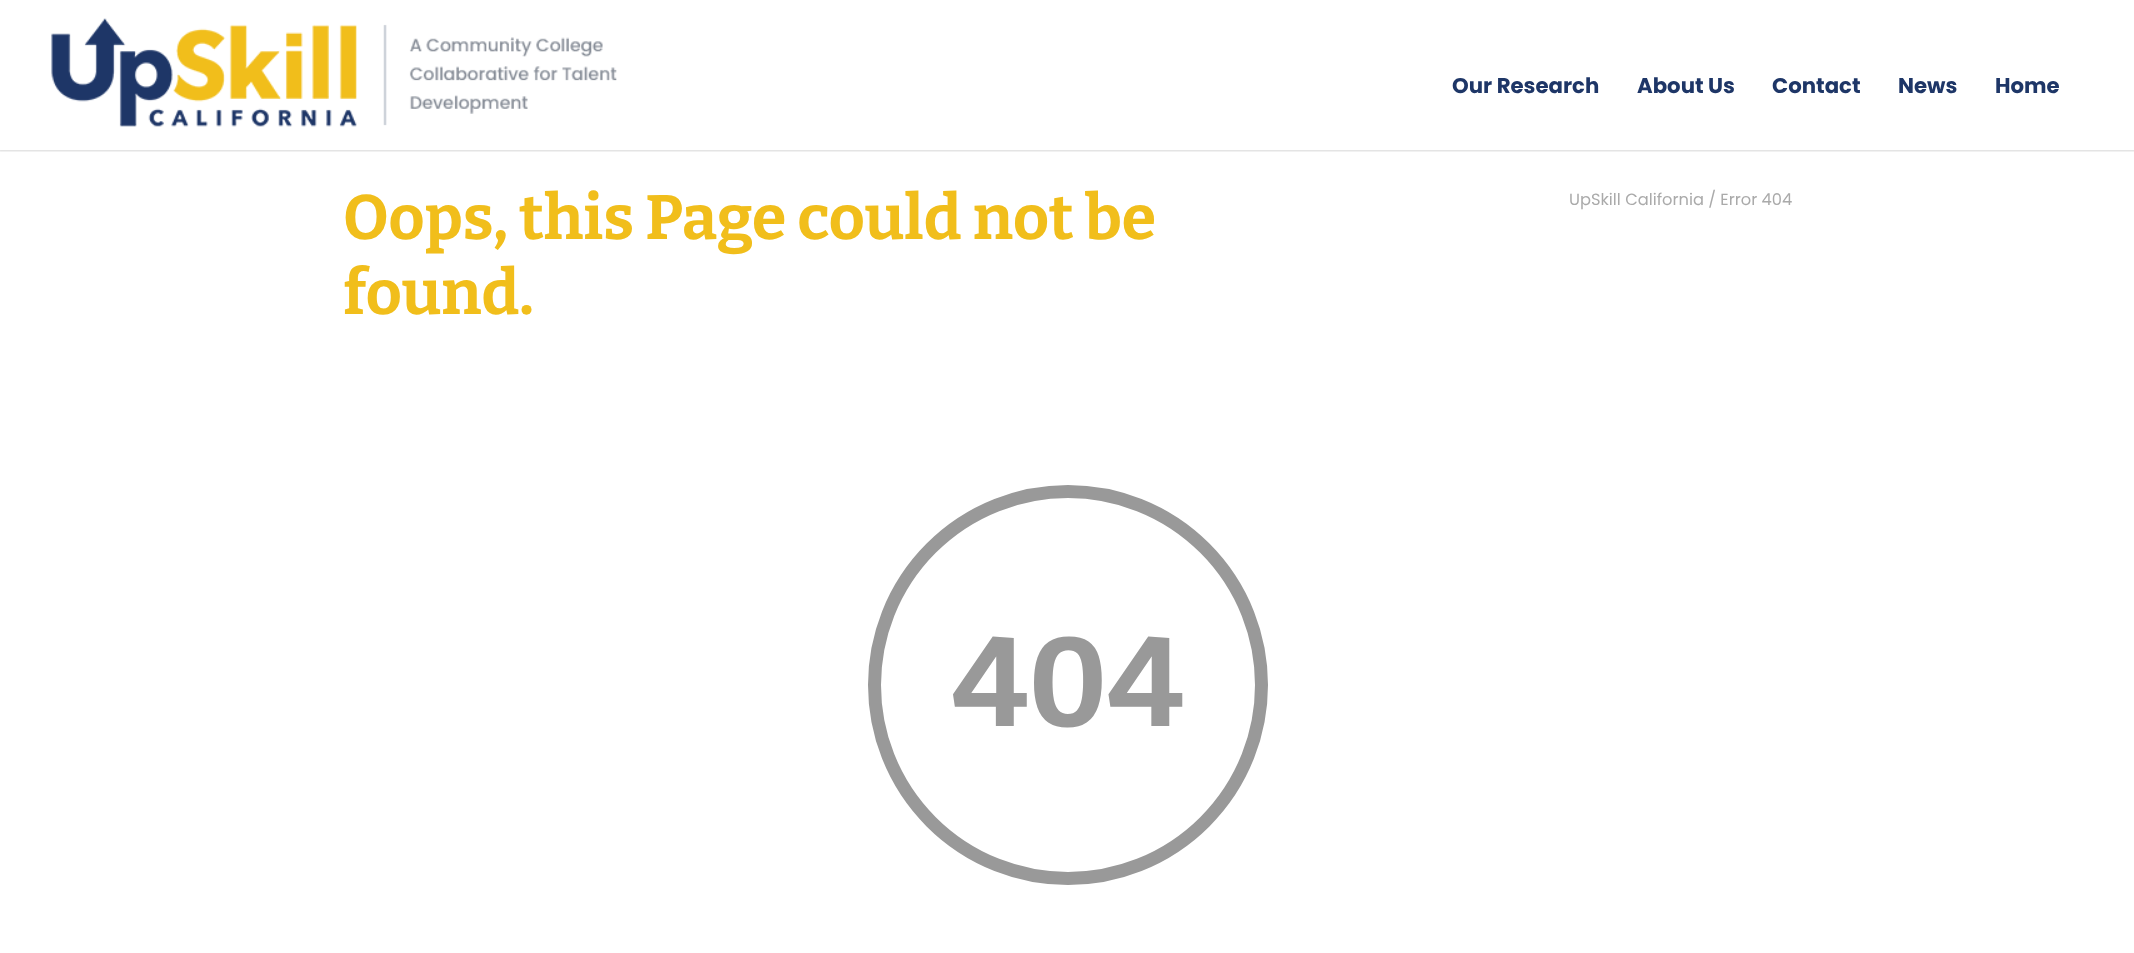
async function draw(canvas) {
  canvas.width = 2134;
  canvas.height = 953;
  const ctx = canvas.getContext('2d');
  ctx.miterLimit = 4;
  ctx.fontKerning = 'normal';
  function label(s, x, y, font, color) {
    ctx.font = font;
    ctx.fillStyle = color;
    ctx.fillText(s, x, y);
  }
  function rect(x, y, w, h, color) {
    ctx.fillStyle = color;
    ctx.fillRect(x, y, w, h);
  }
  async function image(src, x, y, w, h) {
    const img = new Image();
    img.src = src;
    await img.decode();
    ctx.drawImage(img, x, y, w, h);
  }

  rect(0, 0, 2134, 953, '#fff');
  ctx.save();
  ctx.beginPath();
  ctx.rect(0, 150, 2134, 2);
  ctx.clip();
  ctx.fillStyle = '#00000029';
  ctx.filter = 'blur(1px)';
  ctx.beginPath();
  ctx.rect(-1, -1, 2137, 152);
  ctx.fill();
  ctx.filter = 'none';
  ctx.restore();
  await image('assets/img1.png', 51, 18, 566, 109);
  label('Our Research', 1452, 93, 'bold 21.25px Poppins', '#1e3667');
  label('About Us', 1637, 93, 'bold 21.25px Poppins', '#1e3667');
  label('Contact', 1772, 93, 'bold 21.25px Poppins', '#1e3667');
  label('News', 1898, 93, 'bold 21.25px Poppins', '#1e3667');
  label('Home', 1995, 93, 'bold 21.25px Poppins', '#1e3667');
  label('Oops, this Page could not be', 343, 239, 'bold 62.5px Bitter', '#f1be1b');
  label('found.', 343, 314, 'bold 62.5px Bitter', '#f1be1b');
  label('UpSkill California / Error 404', 1569, 205, '16.25px Poppins', '#aaa');
  ctx.beginPath();
  ctx.arc(1068, 685, 193.5, 0, 2 * Math.PI);
  ctx.strokeStyle = '#999';
  ctx.lineWidth = 13;
  ctx.stroke();
  label('404', 952, 726, 'bold 125px Bitter', '#999');
}

draw(document.querySelector('canvas'));
